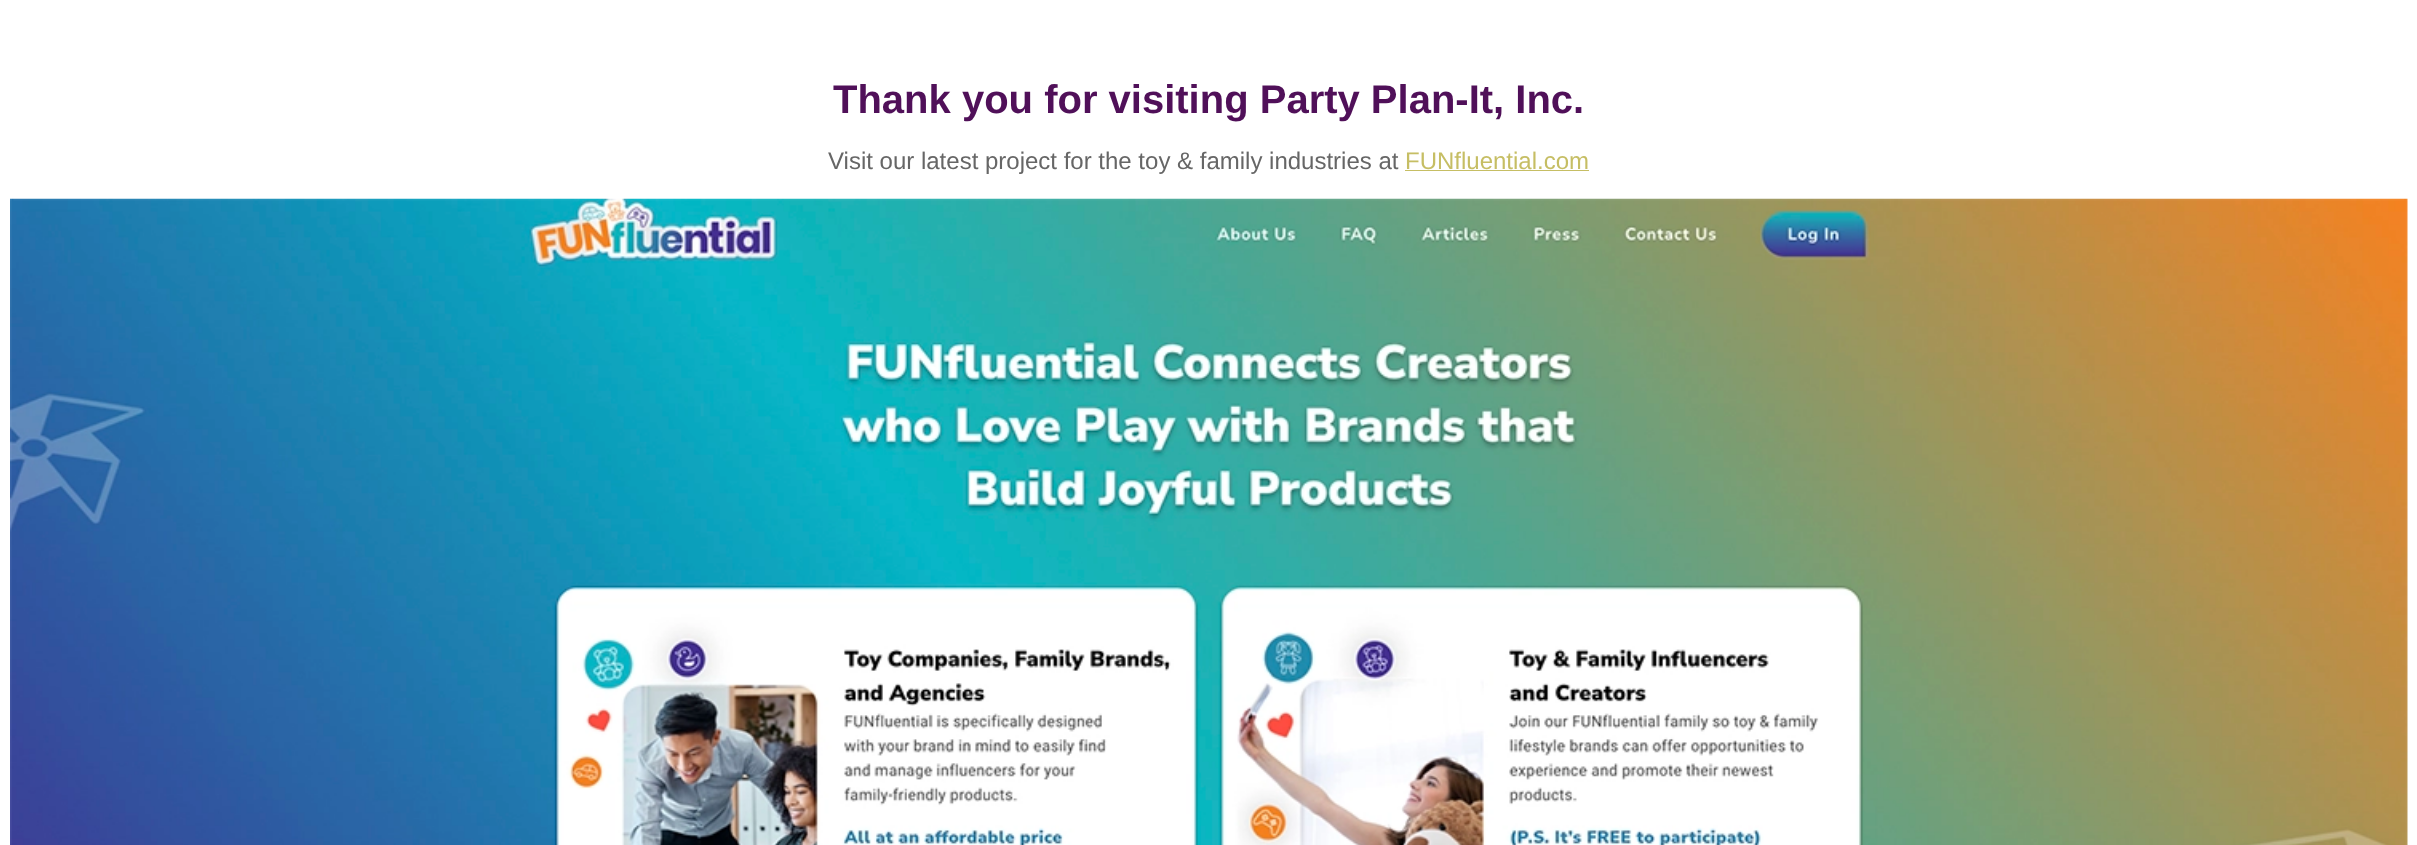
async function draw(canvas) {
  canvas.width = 2417;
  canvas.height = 845;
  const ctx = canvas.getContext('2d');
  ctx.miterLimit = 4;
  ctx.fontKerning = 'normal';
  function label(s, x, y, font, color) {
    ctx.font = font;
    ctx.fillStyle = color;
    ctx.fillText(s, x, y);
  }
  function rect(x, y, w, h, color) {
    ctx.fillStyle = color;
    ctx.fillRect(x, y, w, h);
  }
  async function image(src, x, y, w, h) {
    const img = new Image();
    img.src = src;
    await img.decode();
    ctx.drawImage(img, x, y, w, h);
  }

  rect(0, 0, 2417, 845, '#fff');
  label('Thank you for visiting Party Plan-It, Inc.', 833, 113, 'bold 40px Liberation Sans', '#501059');
  label('Visit our latest project for the toy & family industries at', 828, 169, '24px Liberation Sans', '#666');
  label('FUNfluential.com', 1405, 169, '24px Liberation Sans', '#c6be64');
  rect(1405, 170, 184, 1, '#c6be64');
  await image('assets/img1.png', 10, 198, 2398, 647);
}

draw(document.querySelector('canvas'));
